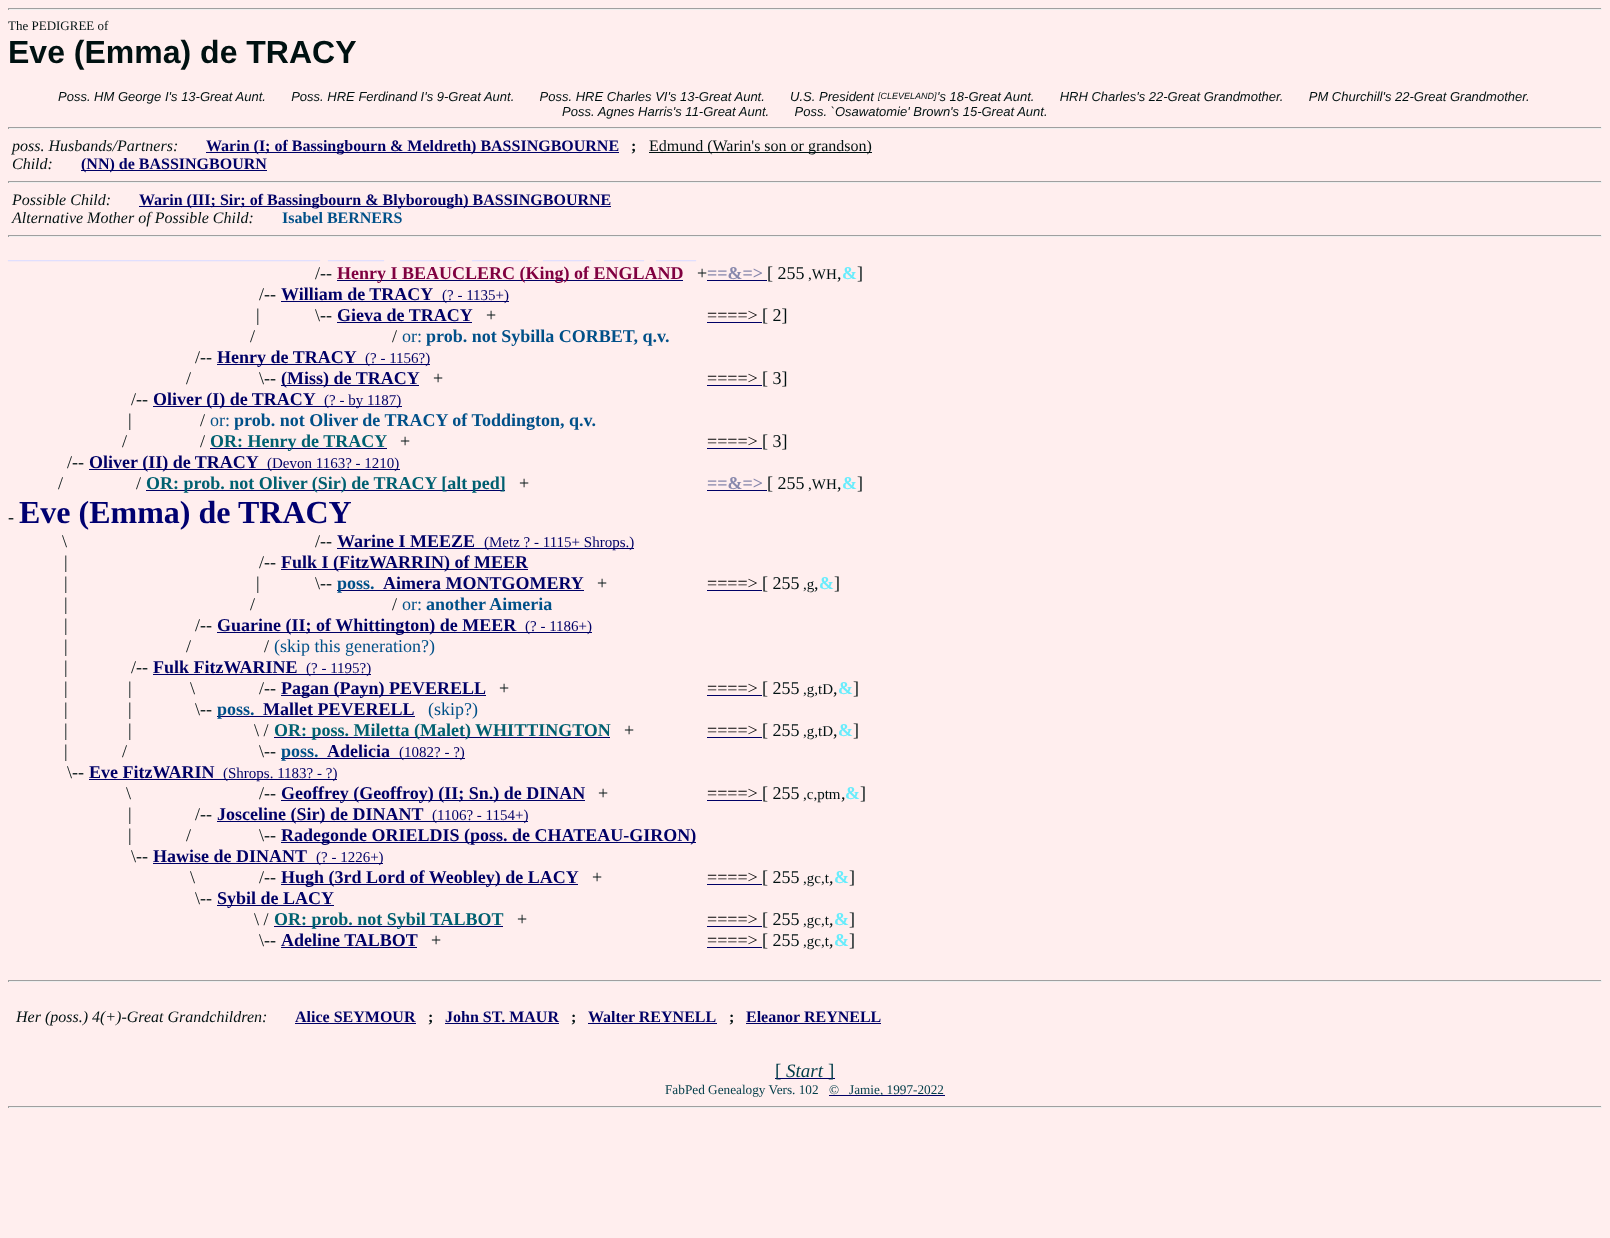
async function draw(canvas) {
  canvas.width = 1610;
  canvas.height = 1238;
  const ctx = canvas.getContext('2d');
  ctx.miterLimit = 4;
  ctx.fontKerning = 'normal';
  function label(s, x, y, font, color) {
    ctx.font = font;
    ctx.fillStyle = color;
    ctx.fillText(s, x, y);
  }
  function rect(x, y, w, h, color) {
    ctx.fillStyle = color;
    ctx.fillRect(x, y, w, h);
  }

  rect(0, 0, 1610, 1238, '#fee');
  rect(8, 8, 1594, 1, '#9f9f9f');
  rect(1601, 8, 1, 2, '#eee');
  rect(8, 9, 1594, 1, '#eee');
  rect(8, 8, 1, 2, '#9f9f9f');
  label('The PEDIGREE of', 8, 30, '13px Liberation Serif', '#011');
  label('Eve (Emma) de TRACY', 8, 63, 'bold 32px Liberation Sans', '#011');
  label('Poss. HM George I\'s 13-Great Aunt.       Poss. HRE Ferdinand I\'s 9-Great Aunt.       Poss. HRE Charles VI\'s 13-Great Aunt.       U.S. President', 58, 101, 'italic 13px Liberation Sans', '#011');
  label('[CLEVELAND]', 878, 99, 'italic 9px Liberation Sans', '#011');
  label('\'s 18-Great Aunt.       HRH Charles\'s 22-Great Grandmother.       PM Churchill\'s 22-Great Grandmother.', 937, 101, 'italic 13px Liberation Sans', '#011');
  label('Poss. Agnes Harris\'s 11-Great Aunt.       Poss. `Osawatomie\' Brown\'s 15-Great Aunt.', 562, 116, 'italic 13px Liberation Sans', '#011');
  rect(8, 127, 1594, 1, '#9f9f9f');
  rect(1601, 127, 1, 2, '#eee');
  rect(8, 128, 1594, 1, '#eee');
  rect(8, 127, 1, 2, '#9f9f9f');
  label('poss. Husbands/Partners:', 12, 151, 'italic 16px Liberation Serif', '#011');
  rect(206, 152, 413, 1, '#006');
  label('Warin (I; of Bassingbourn & Meldreth) BASSINGBOURNE', 206, 151, 'bold 16px Liberation Serif', '#006');
  label(';', 631, 151, 'bold 16px Liberation Serif', '#011');
  rect(649, 152, 223, 1, '#011');
  label('Edmund (Warin\'s son or grandson)', 649, 151, '16px Liberation Serif', '#011');
  label('Child:', 12, 169, 'italic 16px Liberation Serif', '#011');
  rect(81, 170, 186, 1, '#006');
  label('(NN) de BASSINGBOURN', 81, 169, 'bold 16px Liberation Serif', '#006');
  rect(8, 181, 1594, 1, '#9f9f9f');
  rect(1601, 181, 1, 2, '#eee');
  rect(8, 182, 1594, 1, '#eee');
  rect(8, 181, 1, 2, '#9f9f9f');
  label('Possible Child:', 12, 205, 'italic 16px Liberation Serif', '#011');
  rect(139, 206, 472, 1, '#006');
  label('Warin (III; Sir; of Bassingbourn & Blyborough) BASSINGBOURNE', 139, 205, 'bold 16px Liberation Serif', '#006');
  label('Alternative Mother of Possible Child:', 12, 223, 'italic 16px Liberation Serif', '#011');
  label('Isabel BERNERS', 282, 223, 'bold 16px Liberation Serif', '#005088');
  rect(8, 235, 1594, 1, '#9f9f9f');
  rect(1601, 235, 1, 2, '#eee');
  rect(8, 236, 1594, 1, '#eee');
  rect(8, 235, 1, 2, '#9f9f9f');
  label('_______________________________________', 8, 259, 'bold 16px Liberation Serif', '#ddf');
  label('_______', 328, 259, 'bold 16px Liberation Serif', '#ddf');
  label('_______', 400, 259, 'bold 16px Liberation Serif', '#ddf');
  label('_______', 472, 259, 'bold 16px Liberation Serif', '#ddf');
  label('______', 543, 259, 'bold 16px Liberation Serif', '#ddf');
  label('_____', 604, 259, 'bold 16px Liberation Serif', '#ddf');
  label('_____', 656, 259, 'bold 16px Liberation Serif', '#ddf');
  label('/--', 315, 279, '18px Liberation Serif', '#011');
  rect(337, 280, 346, 1, '#006');
  label('Henry I BEAUCLERC (King) of ENGLAND', 337, 279, 'bold 18px Liberation Serif', '#800040');
  label('+', 697, 279, '18px Liberation Serif', '#011');
  label('==&=>', 707, 279, 'bold 18px Liberation Serif', '#8888ac');
  rect(707, 280, 60, 1, '#006');
  label('[ 255', 767, 279, '18px Liberation Serif', '#011');
  label(',WH', 808, 279, '15px Liberation Serif', '#011');
  label(',', 837, 279, '18px Liberation Serif', '#011');
  label('&', 842, 279, 'bold 18px Liberation Serif', '#68ecfc');
  label(']', 857, 279, '18px Liberation Serif', '#011');
  label('/--', 259, 300, '18px Liberation Serif', '#011');
  label('William de TRACY', 281, 300, 'bold 18px Liberation Serif', '#006');
  rect(281, 301, 228, 1, '#006');
  label('(? - 1135+)', 442, 300, '15px Liberation Serif', '#006');
  label('|', 256, 321, '18px Liberation Serif', '#011');
  label('\\--', 315, 321, '18px Liberation Serif', '#011');
  label('Gieva de TRACY', 337, 321, 'bold 18px Liberation Serif', '#006');
  rect(337, 322, 135, 1, '#006');
  label('+', 486, 321, '18px Liberation Serif', '#011');
  label('====>', 707, 321, '18px Liberation Serif', '#000');
  rect(707, 322, 55, 1, '#006');
  label('[ 2]', 762, 321, '18px Liberation Serif', '#011');
  label('/', 250, 342, '18px Liberation Serif', '#011');
  label('/', 392, 342, '18px Liberation Serif', '#011');
  label('or:', 402, 342, '18px Liberation Serif', '#005088');
  label('prob. not Sybilla CORBET, q.v.', 426, 342, 'bold 18px Liberation Serif', '#005088');
  label('/--', 195, 363, '18px Liberation Serif', '#011');
  rect(217, 364, 213, 1, '#006');
  label('Henry de TRACY', 217, 363, 'bold 18px Liberation Serif', '#006');
  label('(? - 1156?)', 365, 363, '15px Liberation Serif', '#006');
  label('/', 186, 384, '18px Liberation Serif', '#011');
  label('\\--', 259, 384, '18px Liberation Serif', '#011');
  rect(281, 385, 138, 1, '#006');
  label('(Miss) de TRACY', 281, 384, 'bold 18px Liberation Serif', '#006');
  label('+', 433, 384, '18px Liberation Serif', '#011');
  label('====>', 707, 384, '18px Liberation Serif', '#000');
  rect(707, 385, 55, 1, '#006');
  label('[ 3]', 762, 384, '18px Liberation Serif', '#011');
  label('/--', 131, 405, '18px Liberation Serif', '#011');
  rect(153, 406, 249, 1, '#006');
  label('Oliver (I) de TRACY', 153, 405, 'bold 18px Liberation Serif', '#006');
  label('(? - by 1187)', 324, 405, '15px Liberation Serif', '#006');
  label('|', 128, 426, '18px Liberation Serif', '#011');
  label('/', 200, 426, '18px Liberation Serif', '#011');
  label('or:', 210, 426, '18px Liberation Serif', '#005088');
  label('prob. not Oliver de TRACY of Toddington, q.v.', 234, 426, 'bold 18px Liberation Serif', '#005088');
  label('/', 122, 447, '18px Liberation Serif', '#011');
  label('/', 200, 447, '18px Liberation Serif', '#011');
  rect(210, 448, 177, 1, '#006');
  label('OR: Henry de TRACY', 210, 447, 'bold 18px Liberation Serif', '#006070');
  label('+', 400, 447, '18px Liberation Serif', '#011');
  label('====>', 707, 447, '18px Liberation Serif', '#000');
  rect(707, 448, 55, 1, '#006');
  label('[ 3]', 762, 447, '18px Liberation Serif', '#011');
  label('/--', 67, 468, '18px Liberation Serif', '#011');
  rect(89, 469, 311, 1, '#006');
  label('Oliver (II) de TRACY', 89, 468, 'bold 18px Liberation Serif', '#006');
  label('(Devon 1163? - 1210)', 267, 468, '15px Liberation Serif', '#006');
  label('/', 58, 489, '18px Liberation Serif', '#011');
  label('/', 136, 489, '18px Liberation Serif', '#011');
  rect(146, 490, 359, 1, '#006');
  label('OR: prob. not Oliver (Sir) de TRACY [alt ped]', 146, 489, 'bold 18px Liberation Serif', '#006070');
  label('+', 519, 489, '18px Liberation Serif', '#011');
  label('==&=>', 707, 489, 'bold 18px Liberation Serif', '#8888ac');
  rect(707, 490, 60, 1, '#006');
  label('[ 255', 767, 489, '18px Liberation Serif', '#011');
  label(',WH', 808, 489, '15px Liberation Serif', '#011');
  label(',', 837, 489, '18px Liberation Serif', '#011');
  label('&', 842, 489, 'bold 18px Liberation Serif', '#68ecfc');
  label(']', 857, 489, '18px Liberation Serif', '#011');
  label('-', 8, 523, '18px Liberation Serif', '#011');
  label('Eve (Emma) de TRACY', 19, 523, 'bold 32px Liberation Serif', '#000070');
  label('\\', 62, 547, '18px Liberation Serif', '#011');
  label('/--', 315, 547, '18px Liberation Serif', '#011');
  label('Warine I MEEZE', 337, 547, 'bold 18px Liberation Serif', '#006');
  rect(337, 548, 297, 1, '#006');
  label('(Metz ? - 1115+ Shrops.)', 484, 547, '15px Liberation Serif', '#006');
  label('|', 64, 568, '18px Liberation Serif', '#011');
  label('/--', 259, 568, '18px Liberation Serif', '#011');
  rect(281, 569, 247, 1, '#006');
  label('Fulk I (FitzWARRIN) of MEER', 281, 568, 'bold 18px Liberation Serif', '#006');
  label('|', 64, 589, '18px Liberation Serif', '#011');
  label('|', 256, 589, '18px Liberation Serif', '#011');
  label('\\--', 315, 589, '18px Liberation Serif', '#011');
  rect(337, 590, 247, 1, '#006');
  label('poss.', 337, 589, 'bold 18px Liberation Serif', '#005088');
  label('Aimera MONTGOMERY', 383, 589, 'bold 18px Liberation Serif', '#006');
  label('+', 597, 589, '18px Liberation Serif', '#011');
  label('====>', 707, 589, '18px Liberation Serif', '#000');
  rect(707, 590, 55, 1, '#006');
  label('[ 255', 762, 589, '18px Liberation Serif', '#011');
  label(',g', 803, 589, '15px Liberation Serif', '#011');
  label(',', 814, 589, '18px Liberation Serif', '#011');
  label('&', 819, 589, 'bold 18px Liberation Serif', '#68ecfc');
  label(']', 834, 589, '18px Liberation Serif', '#011');
  label('|', 64, 610, '18px Liberation Serif', '#011');
  label('/', 250, 610, '18px Liberation Serif', '#011');
  label('/', 392, 610, '18px Liberation Serif', '#011');
  label('or:', 402, 610, '18px Liberation Serif', '#005088');
  label('another Aimeria', 426, 610, 'bold 18px Liberation Serif', '#005088');
  label('|', 64, 631, '18px Liberation Serif', '#011');
  label('/--', 195, 631, '18px Liberation Serif', '#011');
  rect(217, 632, 375, 1, '#006');
  label('Guarine (II; of Whittington) de MEER', 217, 631, 'bold 18px Liberation Serif', '#006');
  label('(? - 1186+)', 525, 631, '15px Liberation Serif', '#006');
  label('|', 64, 652, '18px Liberation Serif', '#011');
  label('/', 186, 652, '18px Liberation Serif', '#011');
  label('/', 264, 652, '18px Liberation Serif', '#011');
  label('(skip this generation?)', 274, 652, '18px Liberation Serif', '#005088');
  label('|', 64, 673, '18px Liberation Serif', '#011');
  label('/--', 131, 673, '18px Liberation Serif', '#011');
  label('Fulk FitzWARINE', 153, 673, 'bold 18px Liberation Serif', '#006');
  rect(153, 674, 218, 1, '#006');
  label('(? - 1195?)', 306, 673, '15px Liberation Serif', '#006');
  label('|', 64, 694, '18px Liberation Serif', '#011');
  label('|', 128, 694, '18px Liberation Serif', '#011');
  label('\\', 190, 694, '18px Liberation Serif', '#011');
  label('/--', 259, 694, '18px Liberation Serif', '#011');
  rect(281, 695, 205, 1, '#006');
  label('Pagan (Payn) PEVERELL', 281, 694, 'bold 18px Liberation Serif', '#006');
  label('+', 499, 694, '18px Liberation Serif', '#011');
  label('====>', 707, 694, '18px Liberation Serif', '#000');
  rect(707, 695, 55, 1, '#006');
  label('[ 255', 762, 694, '18px Liberation Serif', '#011');
  label(',g,tD', 803, 694, '15px Liberation Serif', '#011');
  label(',', 833, 694, '18px Liberation Serif', '#011');
  label('&', 838, 694, 'bold 18px Liberation Serif', '#68ecfc');
  label(']', 853, 694, '18px Liberation Serif', '#011');
  label('|', 64, 715, '18px Liberation Serif', '#011');
  label('|', 128, 715, '18px Liberation Serif', '#011');
  label('\\--', 195, 715, '18px Liberation Serif', '#011');
  rect(217, 716, 198, 1, '#006');
  label('poss.', 217, 715, 'bold 18px Liberation Serif', '#005088');
  label('Mallet PEVERELL', 263, 715, 'bold 18px Liberation Serif', '#006');
  label('(skip?)', 428, 715, '18px Liberation Serif', '#005088');
  label('|', 64, 736, '18px Liberation Serif', '#011');
  label('|', 128, 736, '18px Liberation Serif', '#011');
  label('\\ /', 254, 736, '18px Liberation Serif', '#011');
  rect(274, 737, 336, 1, '#006');
  label('OR: poss. Miletta (Malet) WHITTINGTON', 274, 736, 'bold 18px Liberation Serif', '#006070');
  label('+', 624, 736, '18px Liberation Serif', '#011');
  label('====>', 707, 736, '18px Liberation Serif', '#000');
  rect(707, 737, 55, 1, '#006');
  label('[ 255', 762, 736, '18px Liberation Serif', '#011');
  label(',g,tD', 803, 736, '15px Liberation Serif', '#011');
  label(',', 833, 736, '18px Liberation Serif', '#011');
  label('&', 838, 736, 'bold 18px Liberation Serif', '#68ecfc');
  label(']', 853, 736, '18px Liberation Serif', '#011');
  label('|', 64, 757, '18px Liberation Serif', '#011');
  label('/', 122, 757, '18px Liberation Serif', '#011');
  label('\\--', 259, 757, '18px Liberation Serif', '#011');
  rect(281, 758, 184, 1, '#006');
  label('poss.', 281, 757, 'bold 18px Liberation Serif', '#005088');
  label('Adelicia', 327, 757, 'bold 18px Liberation Serif', '#006');
  label('(1082? - ?)', 399, 757, '15px Liberation Serif', '#006');
  label('\\--', 67, 778, '18px Liberation Serif', '#011');
  label('Eve FitzWARIN', 89, 778, 'bold 18px Liberation Serif', '#006');
  rect(89, 779, 248, 1, '#006');
  label('(Shrops. 1183? - ?)', 223, 778, '15px Liberation Serif', '#006');
  label('\\', 126, 799, '18px Liberation Serif', '#011');
  label('/--', 259, 799, '18px Liberation Serif', '#011');
  rect(281, 800, 304, 1, '#006');
  label('Geoffrey (Geoffroy) (II; Sn.) de DINAN', 281, 799, 'bold 18px Liberation Serif', '#006');
  label('+', 598, 799, '18px Liberation Serif', '#011');
  label('====>', 707, 799, '18px Liberation Serif', '#000');
  rect(707, 800, 55, 1, '#006');
  label('[ 255', 762, 799, '18px Liberation Serif', '#011');
  label(',c,ptm', 803, 799, '15px Liberation Serif', '#011');
  label(',', 841, 799, '18px Liberation Serif', '#011');
  label('&', 845, 799, 'bold 18px Liberation Serif', '#68ecfc');
  label(']', 860, 799, '18px Liberation Serif', '#011');
  label('|', 128, 820, '18px Liberation Serif', '#011');
  label('/--', 195, 820, '18px Liberation Serif', '#011');
  rect(217, 821, 311, 1, '#006');
  label('Josceline (Sir) de DINANT', 217, 820, 'bold 18px Liberation Serif', '#006');
  label('(1106? - 1154+)', 432, 820, '15px Liberation Serif', '#006');
  label('|', 128, 841, '18px Liberation Serif', '#011');
  label('/', 186, 841, '18px Liberation Serif', '#011');
  label('\\--', 259, 841, '18px Liberation Serif', '#011');
  rect(281, 842, 415, 1, '#006');
  label('Radegonde ORIELDIS (poss. de CHATEAU-GIRON)', 281, 841, 'bold 18px Liberation Serif', '#006');
  label('\\--', 131, 862, '18px Liberation Serif', '#011');
  label('Hawise de DINANT', 153, 862, 'bold 18px Liberation Serif', '#006');
  rect(153, 863, 230, 1, '#006');
  label('(? - 1226+)', 316, 862, '15px Liberation Serif', '#006');
  label('\\', 190, 883, '18px Liberation Serif', '#011');
  label('/--', 259, 883, '18px Liberation Serif', '#011');
  rect(281, 884, 297, 1, '#006');
  label('Hugh (3rd Lord of Weobley) de LACY', 281, 883, 'bold 18px Liberation Serif', '#006');
  label('+', 592, 883, '18px Liberation Serif', '#011');
  label('====>', 707, 883, '18px Liberation Serif', '#000');
  rect(707, 884, 55, 1, '#006');
  label('[ 255', 762, 883, '18px Liberation Serif', '#011');
  label(',gc,t', 803, 883, '15px Liberation Serif', '#011');
  label(',', 829, 883, '18px Liberation Serif', '#011');
  label('&', 834, 883, 'bold 18px Liberation Serif', '#68ecfc');
  label(']', 849, 883, '18px Liberation Serif', '#011');
  label('\\--', 195, 904, '18px Liberation Serif', '#011');
  rect(217, 905, 117, 1, '#006');
  label('Sybil de LACY', 217, 904, 'bold 18px Liberation Serif', '#006');
  label('\\ /', 254, 925, '18px Liberation Serif', '#011');
  rect(274, 926, 229, 1, '#006');
  label('OR: prob. not Sybil TALBOT', 274, 925, 'bold 18px Liberation Serif', '#006070');
  label('+', 517, 925, '18px Liberation Serif', '#011');
  label('====>', 707, 925, '18px Liberation Serif', '#000');
  rect(707, 926, 55, 1, '#006');
  label('[ 255', 762, 925, '18px Liberation Serif', '#011');
  label(',gc,t', 803, 925, '15px Liberation Serif', '#011');
  label(',', 829, 925, '18px Liberation Serif', '#011');
  label('&', 834, 925, 'bold 18px Liberation Serif', '#68ecfc');
  label(']', 849, 925, '18px Liberation Serif', '#011');
  label('\\--', 259, 946, '18px Liberation Serif', '#011');
  label('Adeline TALBOT', 281, 946, 'bold 18px Liberation Serif', '#006');
  rect(281, 947, 136, 1, '#006');
  label('+', 431, 946, '18px Liberation Serif', '#011');
  label('====>', 707, 946, '18px Liberation Serif', '#000');
  rect(707, 947, 55, 1, '#006');
  label('[ 255', 762, 946, '18px Liberation Serif', '#011');
  label(',gc,t', 803, 946, '15px Liberation Serif', '#011');
  label(',', 829, 946, '18px Liberation Serif', '#011');
  label('&', 834, 946, 'bold 18px Liberation Serif', '#68ecfc');
  label(']', 849, 946, '18px Liberation Serif', '#011');
  rect(8, 980, 1594, 1, '#9f9f9f');
  rect(1601, 980, 1, 2, '#eee');
  rect(8, 981, 1594, 1, '#eee');
  rect(8, 980, 1, 2, '#9f9f9f');
  label('Her (poss.) 4(+)-Great Grandchildren:', 16, 1022, 'italic 16px Liberation Serif', '#011');
  label('Alice SEYMOUR', 295, 1022, 'bold 16px Liberation Serif', '#006');
  rect(295, 1023, 121, 1, '#006');
  label(';', 428, 1022, 'bold 16px Liberation Serif', '#011');
  label('John ST. MAUR', 445, 1022, 'bold 16px Liberation Serif', '#006');
  rect(445, 1023, 114, 1, '#006');
  label(';', 571, 1022, 'bold 16px Liberation Serif', '#011');
  label('Walter REYNELL', 588, 1022, 'bold 16px Liberation Serif', '#006');
  rect(588, 1023, 129, 1, '#006');
  label(';', 729, 1022, 'bold 16px Liberation Serif', '#011');
  label('Eleanor REYNELL', 746, 1022, 'bold 16px Liberation Serif', '#006');
  rect(746, 1023, 135, 1, '#006');
  rect(775, 1078, 60, 1, '#006');
  label('[', 775, 1077, '19px Liberation Serif', '#003c48');
  label('Start', 786, 1077, 'italic 19px Liberation Serif', '#003c48');
  label(']', 828, 1077, '19px Liberation Serif', '#003c48');
  label('FabPed Genealogy Vers. 102', 665, 1094, '13.25px Liberation Serif', '#003c48');
  rect(829, 1095, 116, 1, '#006');
  label('©   Jamie, 1997-2022', 829, 1094, '13.25px Liberation Serif', '#003c48');
  rect(8, 1106, 1594, 1, '#9f9f9f');
  rect(1601, 1106, 1, 2, '#eee');
  rect(8, 1107, 1594, 1, '#eee');
  rect(8, 1106, 1, 2, '#9f9f9f');
}

draw(document.querySelector('canvas'));
